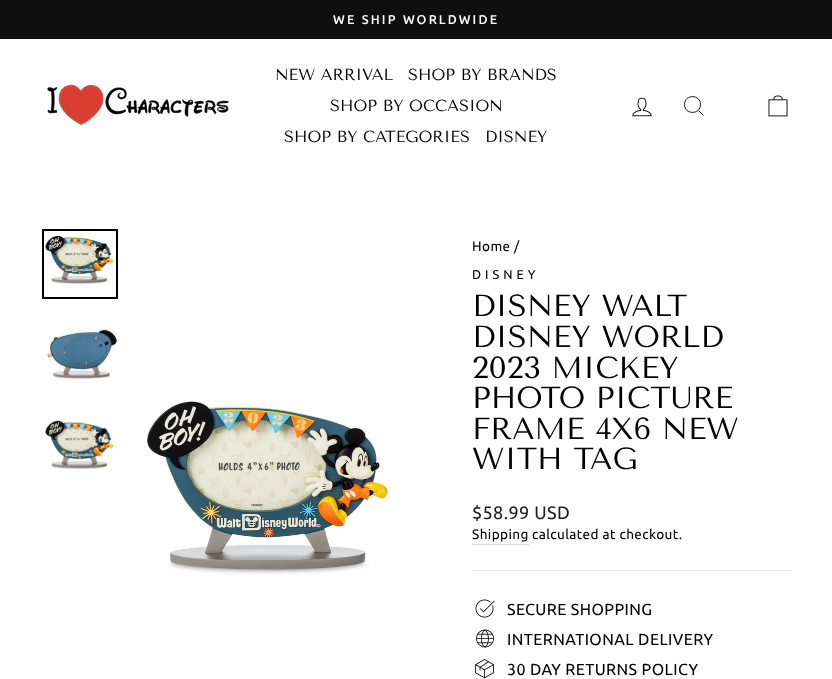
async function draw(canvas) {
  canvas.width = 832;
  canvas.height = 679;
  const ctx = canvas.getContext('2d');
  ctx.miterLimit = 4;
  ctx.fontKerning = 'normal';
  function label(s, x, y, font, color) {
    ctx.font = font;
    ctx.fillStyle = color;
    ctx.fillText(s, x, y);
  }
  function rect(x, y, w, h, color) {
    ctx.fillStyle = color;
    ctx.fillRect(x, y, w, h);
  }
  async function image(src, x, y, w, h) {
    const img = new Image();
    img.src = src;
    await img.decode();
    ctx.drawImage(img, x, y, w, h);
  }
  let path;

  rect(0, 0, 832, 679, '#fff');
  rect(0, 0, 832, 39, '#0f0f0f');
  ctx.letterSpacing = '2.5px';
  label('WE SHIP WORLDWIDE', 333, 24, 'bold 12.25px Ubuntu', '#fff');
  await image('assets/img1.png', 47, 84, 182, 41);
  ctx.letterSpacing = '0px';
  label('NEW ARRIVAL', 275, 80, '16px Tenor Sans', '#000');
  label('SHOP BY BRANDS', 408, 80, '16px Tenor Sans', '#000');
  label('SHOP BY OCCASION', 330, 111, '16px Tenor Sans', '#000');
  label('SHOP BY CATEGORIES', 284, 142, '16px Tenor Sans', '#000');
  label('DISNEY', 485, 142, '16px Tenor Sans', '#000');
  await image('assets/img2.png', 632, 97, 20, 20);
  path = new Path2D('M700.5 104.5C700.5 115 684.5 115 684.5 104.5C684.5 94 700.5 94 700.5 104.5ZM703.5 115.5L698.5 110.5');
  ctx.strokeStyle = '#000';
  ctx.lineWidth = 0.9;
  ctx.stroke(path);
  await image('assets/img3.png', 768, 95, 20, 22);
  await image('assets/img4.png', 45, 234, 69, 51);
  ctx.lineWidth = 2;
  ctx.strokeRect(43, 230, 74, 68);
  await image('assets/img5.png', 46, 328, 71, 52);
  await image('assets/img6.png', 45, 419, 69, 51);
  await image('assets/img7.png', 147, 401, 244, 175);
  ctx.letterSpacing = '0.4px';
  label('Home /', 472, 251, '13.6px Ubuntu', '#000');
  ctx.letterSpacing = '4px';
  label('DISNEY', 472, 279, '12.75px Ubuntu', '#000');
  ctx.letterSpacing = '0px';
  label('DISNEY WALT', 472, 316, '30.5px Tenor Sans', '#000');
  label('DISNEY WORLD', 472, 347, '30.5px Tenor Sans', '#000');
  label('2023 MICKEY', 472, 378, '30.5px Tenor Sans', '#000');
  label('PHOTO PICTURE', 472, 408, '30.5px Tenor Sans', '#000');
  label('FRAME 4X6 NEW', 472, 439, '30.5px Tenor Sans', '#000');
  label('WITH TAG', 472, 469, '30.5px Tenor Sans', '#000');
  ctx.letterSpacing = '0.4px';
  label('$58.99 USD', 472, 519, '18px Ubuntu', '#1c1d1d');
  rect(472, 544, 57, 1, '#d9d9d9');
  label('Shipping', 472, 539, '13.6px Ubuntu', '#000');
  label('calculated at checkout.', 532, 539, '13.6px Ubuntu', '#000');
  rect(472, 570, 320, 1, '#e8e8e1');
  await image('assets/img8.png', 475, 599, 20, 19);
  label('SECURE SHOPPING', 507, 615, '16px Ubuntu', '#000');
  await image('assets/img9.png', 476, 629, 18, 19);
  label('INTERNATIONAL DELIVERY', 507, 645, '16px Ubuntu', '#000');
  await image('assets/img10.png', 475, 659, 19, 20);
  label('30 DAY RETURNS POLICY', 507, 675, '16px Ubuntu', '#000');
}

draw(document.querySelector('canvas'));
